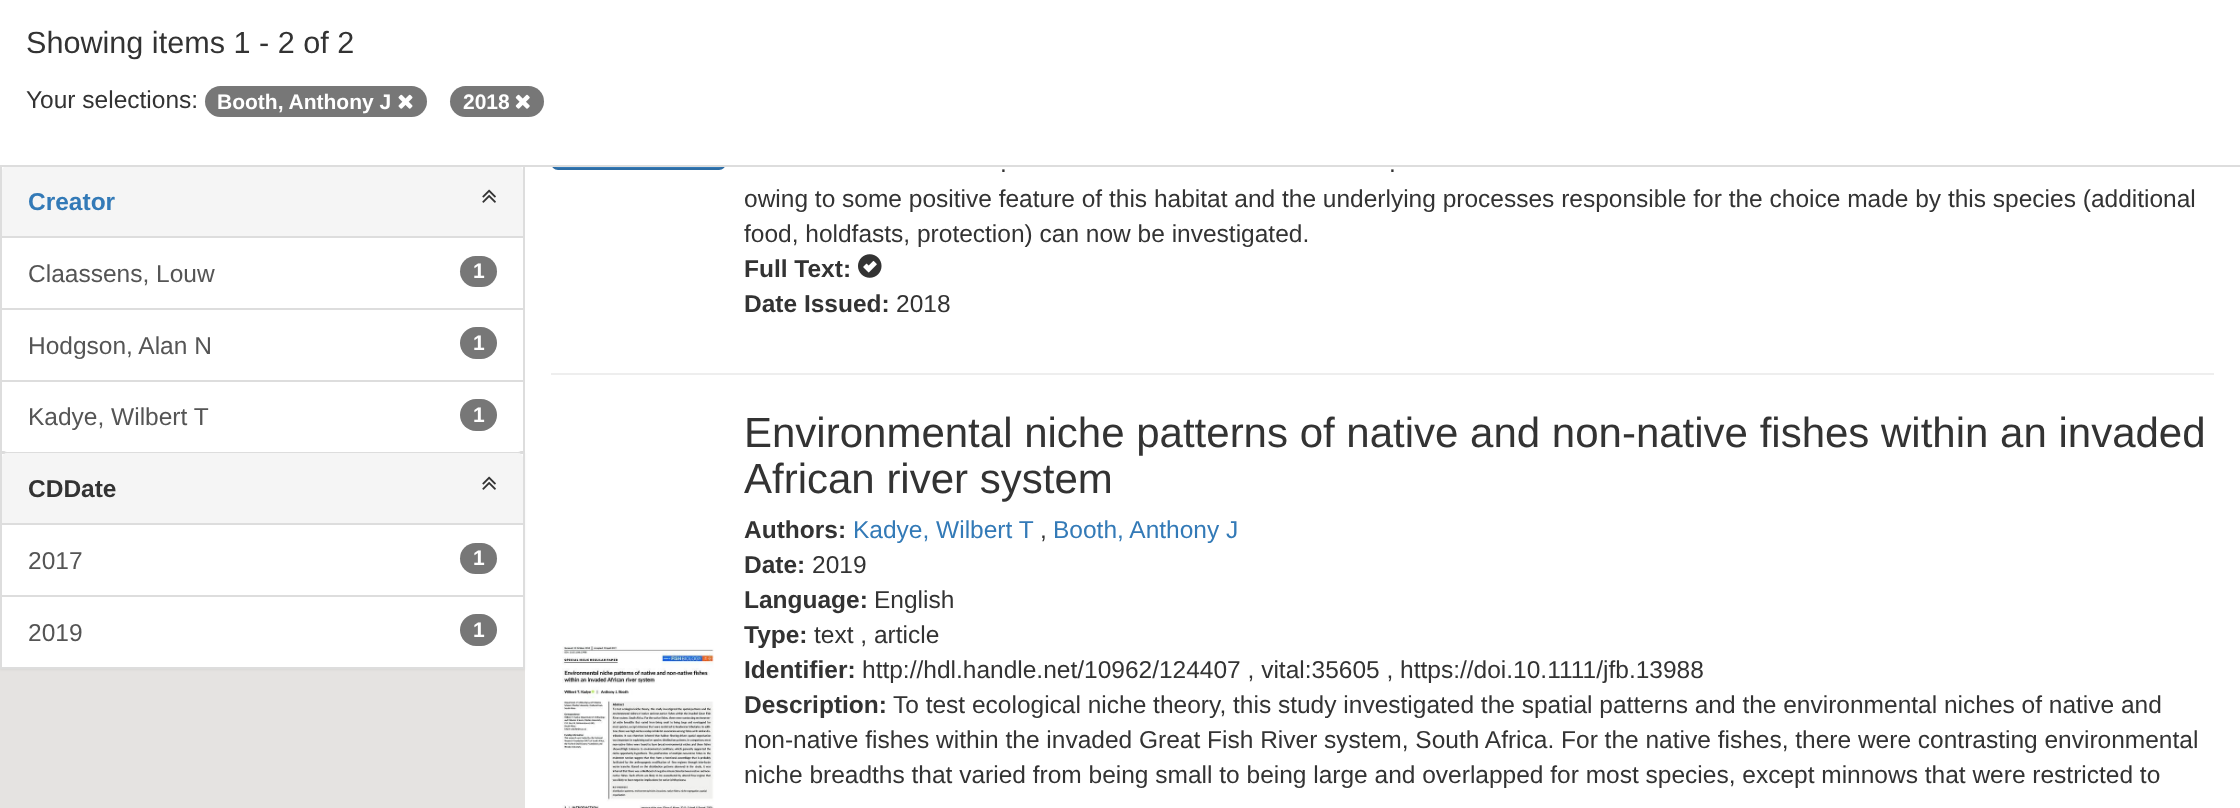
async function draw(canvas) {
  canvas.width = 2240;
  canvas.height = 808;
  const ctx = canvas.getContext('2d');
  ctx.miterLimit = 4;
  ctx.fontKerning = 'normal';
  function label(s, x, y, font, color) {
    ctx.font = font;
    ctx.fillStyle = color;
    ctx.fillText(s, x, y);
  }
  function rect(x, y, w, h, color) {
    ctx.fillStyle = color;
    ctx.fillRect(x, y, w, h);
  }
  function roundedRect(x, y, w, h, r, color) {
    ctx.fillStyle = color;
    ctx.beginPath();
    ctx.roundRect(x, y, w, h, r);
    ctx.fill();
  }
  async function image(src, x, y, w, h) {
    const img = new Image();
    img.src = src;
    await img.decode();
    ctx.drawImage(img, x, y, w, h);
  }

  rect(0, 0, 2240, 808, '#fff');
  ctx.fillStyle = '#337ab7';
  ctx.beginPath();
  ctx.roundRect(552, 111, 173, 58, 6);
  ctx.fill();
  ctx.strokeStyle = '#2e6da4';
  ctx.lineWidth = 2;
  ctx.stroke();
  rect(551, 110, 175, 55, '#fff');
  ctx.strokeStyle = '#ddd';
  ctx.strokeRect(1, 166, 523, 286);
  ctx.fillStyle = '#f5f5f5';
  ctx.beginPath();
  ctx.roundRect(2, 166, 521, 72, [5, 5, 0, 0]);
  ctx.fill();
  rect(0, 165, 2240, 2, '#ddd');
  label('Showing items 1 - 2 of 2', 26, 53, '30.6px Liberation Sans', '#333');
  label('Your selections:', 26, 108, '24.5px Liberation Sans', '#333');
  roundedRect(205, 86, 222, 31, 15.5, '#777');
  label('Booth, Anthony J', 217, 109, 'bold 21px Liberation Sans', '#fff');
  await image('assets/img1.png', 398, 94, 15, 15);
  roundedRect(450, 86, 94, 31, 15.5, '#777');
  label('2018', 463, 109, 'bold 21px Liberation Sans', '#fff');
  await image('assets/img2.png', 515, 94, 15, 15);
  rect(0, 669, 525, 139, '#e5e3e1');
  rect(2, 236, 521, 2, '#ddd');
  label('Creator', 28, 210, 'bold 24.5px Liberation Sans', '#337ab7');
  await image('assets/img3.png', 482, 189, 14, 14);
  rect(2, 308, 521, 2, '#ddd');
  label('Claassens, Louw', 28, 282, '24.5px Liberation Sans', '#555');
  roundedRect(460, 256, 37, 31, 15.5, '#777');
  label('1', 473, 278, 'bold 21px Liberation Sans', '#fff');
  label('Hodgson, Alan N', 28, 354, '24.5px Liberation Sans', '#555');
  roundedRect(460, 327, 37, 32, 16, '#777');
  label('1', 473, 350, 'bold 21px Liberation Sans', '#fff');
  ctx.fillStyle = '#0000000d';
  ctx.filter = 'blur(1px)';
  ctx.beginPath();
  ctx.rect(0, 453, 525, 217);
  ctx.fill();
  ctx.filter = 'none';
  ctx.fillStyle = '#fff';
  ctx.beginPath();
  ctx.roundRect(2, 380, 521, 72, [0, 0, 5, 5]);
  ctx.fill();
  rect(2, 380, 521, 2, '#ddd');
  label('Kadye, Wilbert T', 28, 425, '24.5px Liberation Sans', '#555');
  roundedRect(460, 399, 37, 32, 16, '#777');
  label('1', 473, 422, 'bold 21px Liberation Sans', '#fff');
  ctx.beginPath();
  ctx.rect(1, 453, 523, 215);
  ctx.fill();
  ctx.stroke();
  ctx.fillStyle = '#f5f5f5';
  ctx.beginPath();
  ctx.roundRect(2, 453, 521, 72, [5, 5, 0, 0]);
  ctx.fill();
  rect(2, 523, 521, 2, '#ddd');
  label('CDDate', 28, 497, 'bold 24.5px Liberation Sans', '#333');
  await image('assets/img3.png', 482, 476, 14, 14);
  label('2017', 28, 569, '24.5px Liberation Sans', '#555');
  roundedRect(460, 543, 37, 31, 15.5, '#777');
  label('1', 473, 565, 'bold 21px Liberation Sans', '#fff');
  rect(2, 595, 521, 2, '#ddd');
  label('2019', 28, 641, '24.5px Liberation Sans', '#555');
  roundedRect(460, 614, 37, 32, 16, '#777');
  label('1', 473, 637, 'bold 21px Liberation Sans', '#fff');
  label('.', 1000, 172, '24.5px Liberation Sans', '#333');
  label('.', 1389, 172, '24.5px Liberation Sans', '#333');
  label('owing to some positive feature of this habitat and the underlying processes responsible for the choice made by this species (additional', 744, 207, '24.5px Liberation Sans', '#333');
  label('food, holdfasts, protection) can now be investigated.', 744, 242, '24.5px Liberation Sans', '#333');
  label('Full Text:', 744, 277, 'bold 24.5px Liberation Sans', '#333');
  await image('assets/img4.png', 858, 254, 24, 24);
  label('Date Issued:', 744, 312, 'bold 24.5px Liberation Sans', '#333');
  label('2018', 896, 312, '24.5px Liberation Sans', '#333');
  rect(551, 373, 1663, 2, '#eee');
  await image('assets/img5.png', 562, 646, 152, 162);
  label('Environmental niche patterns of native and non-native fishes within an invaded', 744, 447, '42px Liberation Sans', '#333');
  label('African river system', 744, 493, '42px Liberation Sans', '#333');
  label('Authors:', 744, 538, 'bold 24.5px Liberation Sans', '#333');
  label('Kadye, Wilbert T', 853, 538, '24.5px Liberation Sans', '#337ab7');
  label(',', 1040, 538, '24.5px Liberation Sans', '#333');
  label('Booth, Anthony J', 1053, 538, '24.5px Liberation Sans', '#337ab7');
  label('Date:', 744, 573, 'bold 24.5px Liberation Sans', '#333');
  label('2019', 812, 573, '24.5px Liberation Sans', '#333');
  label('Language:', 744, 608, 'bold 24.5px Liberation Sans', '#333');
  label('English', 874, 608, '24.5px Liberation Sans', '#333');
  label('Type:', 744, 643, 'bold 24.5px Liberation Sans', '#333');
  label('text , article', 814, 643, '24.5px Liberation Sans', '#333');
  label('Identifier:', 744, 678, 'bold 24.5px Liberation Sans', '#333');
  label('http://hdl.handle.net/10962/124407 , vital:35605 , https://doi.10.1111/jfb.13988', 862, 678, '24.5px Liberation Sans', '#333');
  label('Description:', 744, 713, 'bold 24.5px Liberation Sans', '#333');
  label('To test ecological niche theory, this study investigated the spatial patterns and the environmental niches of native and', 893, 713, '24.5px Liberation Sans', '#333');
  label('non-native fishes within the invaded Great Fish River system, South Africa. For the native fishes, there were contrasting environmental', 744, 748, '24.5px Liberation Sans', '#333');
  label('niche breadths that varied from being small to being large and overlapped for most species, except minnows that were restricted to', 744, 783, '24.5px Liberation Sans', '#333');
}

draw(document.querySelector('canvas'));
